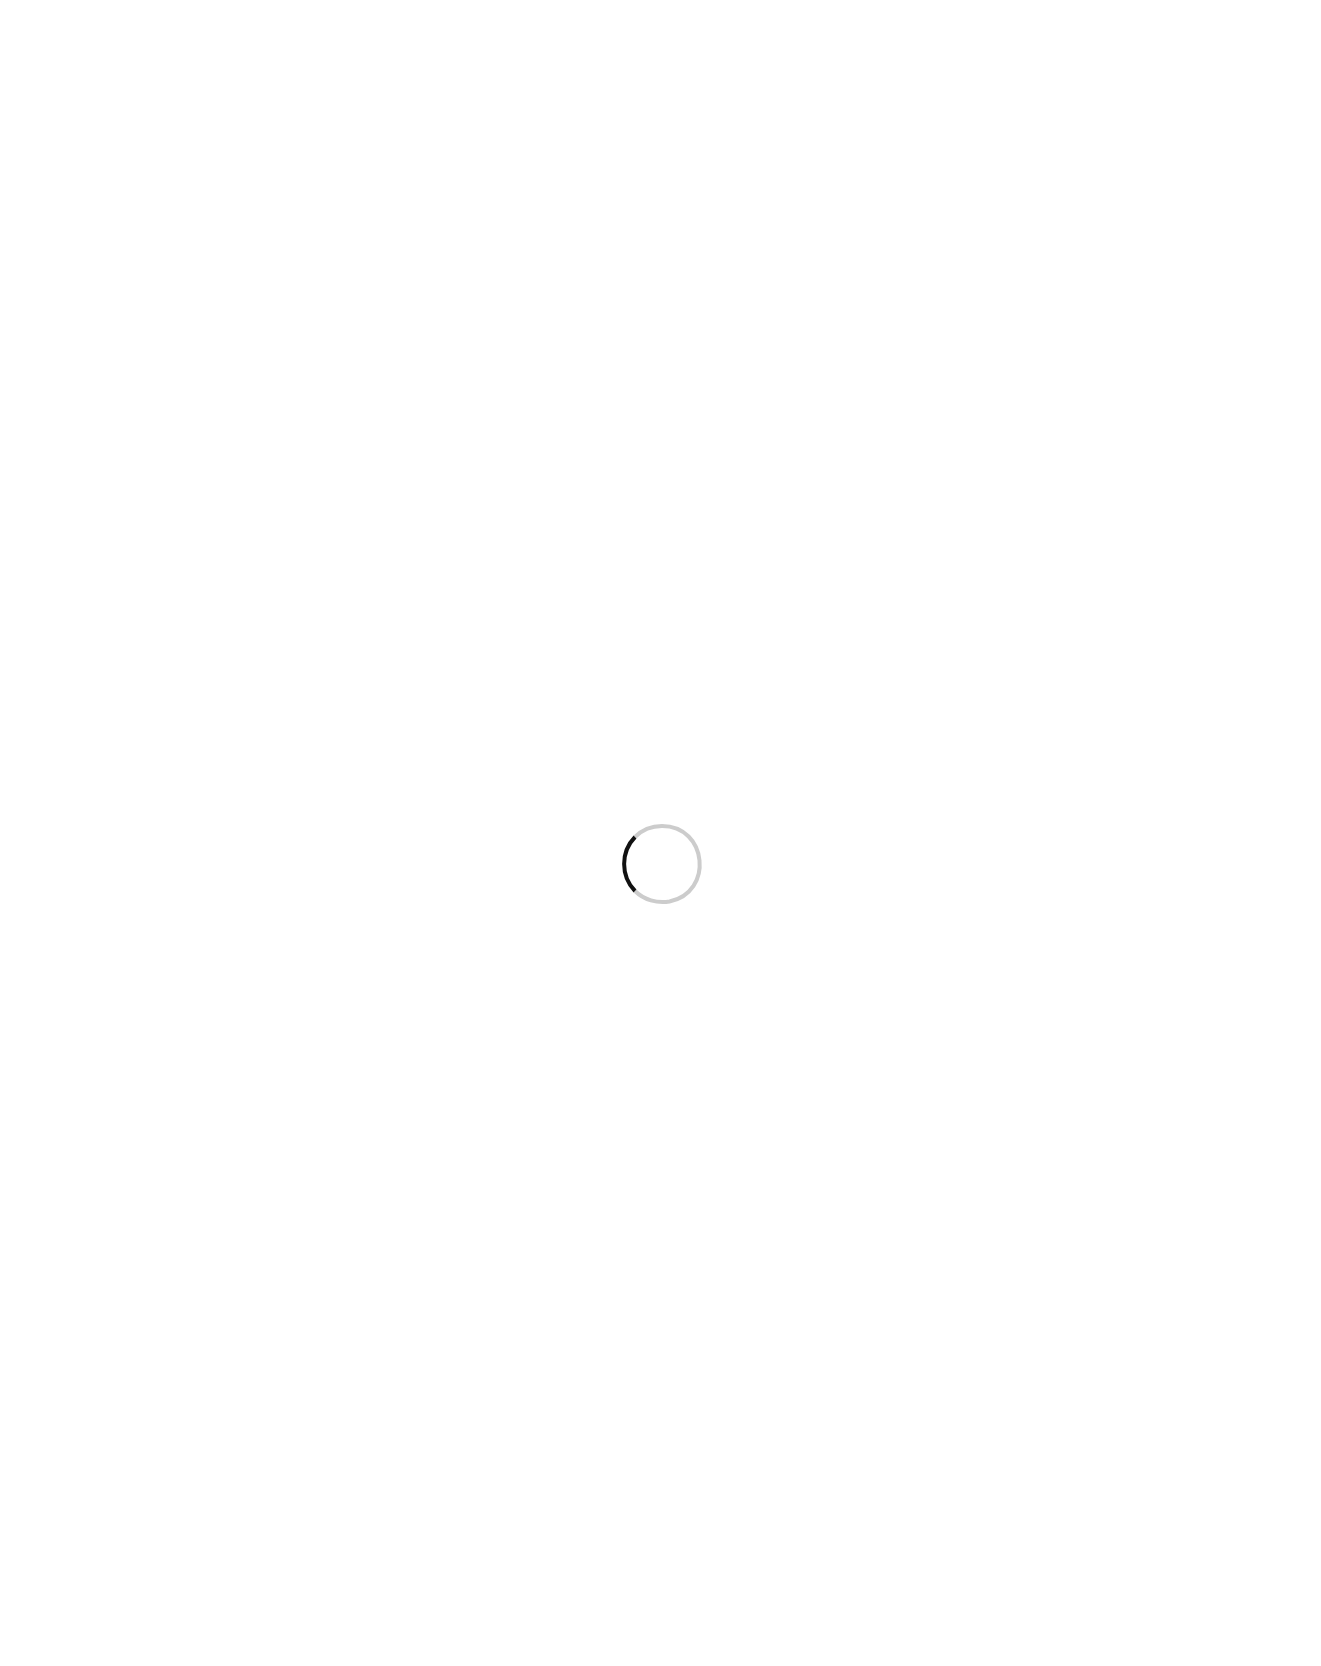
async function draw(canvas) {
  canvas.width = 1321;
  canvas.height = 1666;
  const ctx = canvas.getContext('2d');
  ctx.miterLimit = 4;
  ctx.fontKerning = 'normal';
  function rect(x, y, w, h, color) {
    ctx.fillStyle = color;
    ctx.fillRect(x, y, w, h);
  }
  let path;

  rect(0, 0, 1321, 1666, '#fff');
  path = new Path2D('M635 837C642 830 652 826 662 826C707.5 826 714 892.5 669.5 901.5C657 903.5 644 900 635 891');
  ctx.strokeStyle = '#ccc';
  ctx.lineWidth = 4;
  ctx.stroke(path);
  path = new Path2D('M635 891C620.5 876 620.5 852 635 837');
  ctx.strokeStyle = '#111';
  ctx.stroke(path);
}

draw(document.querySelector('canvas'));
